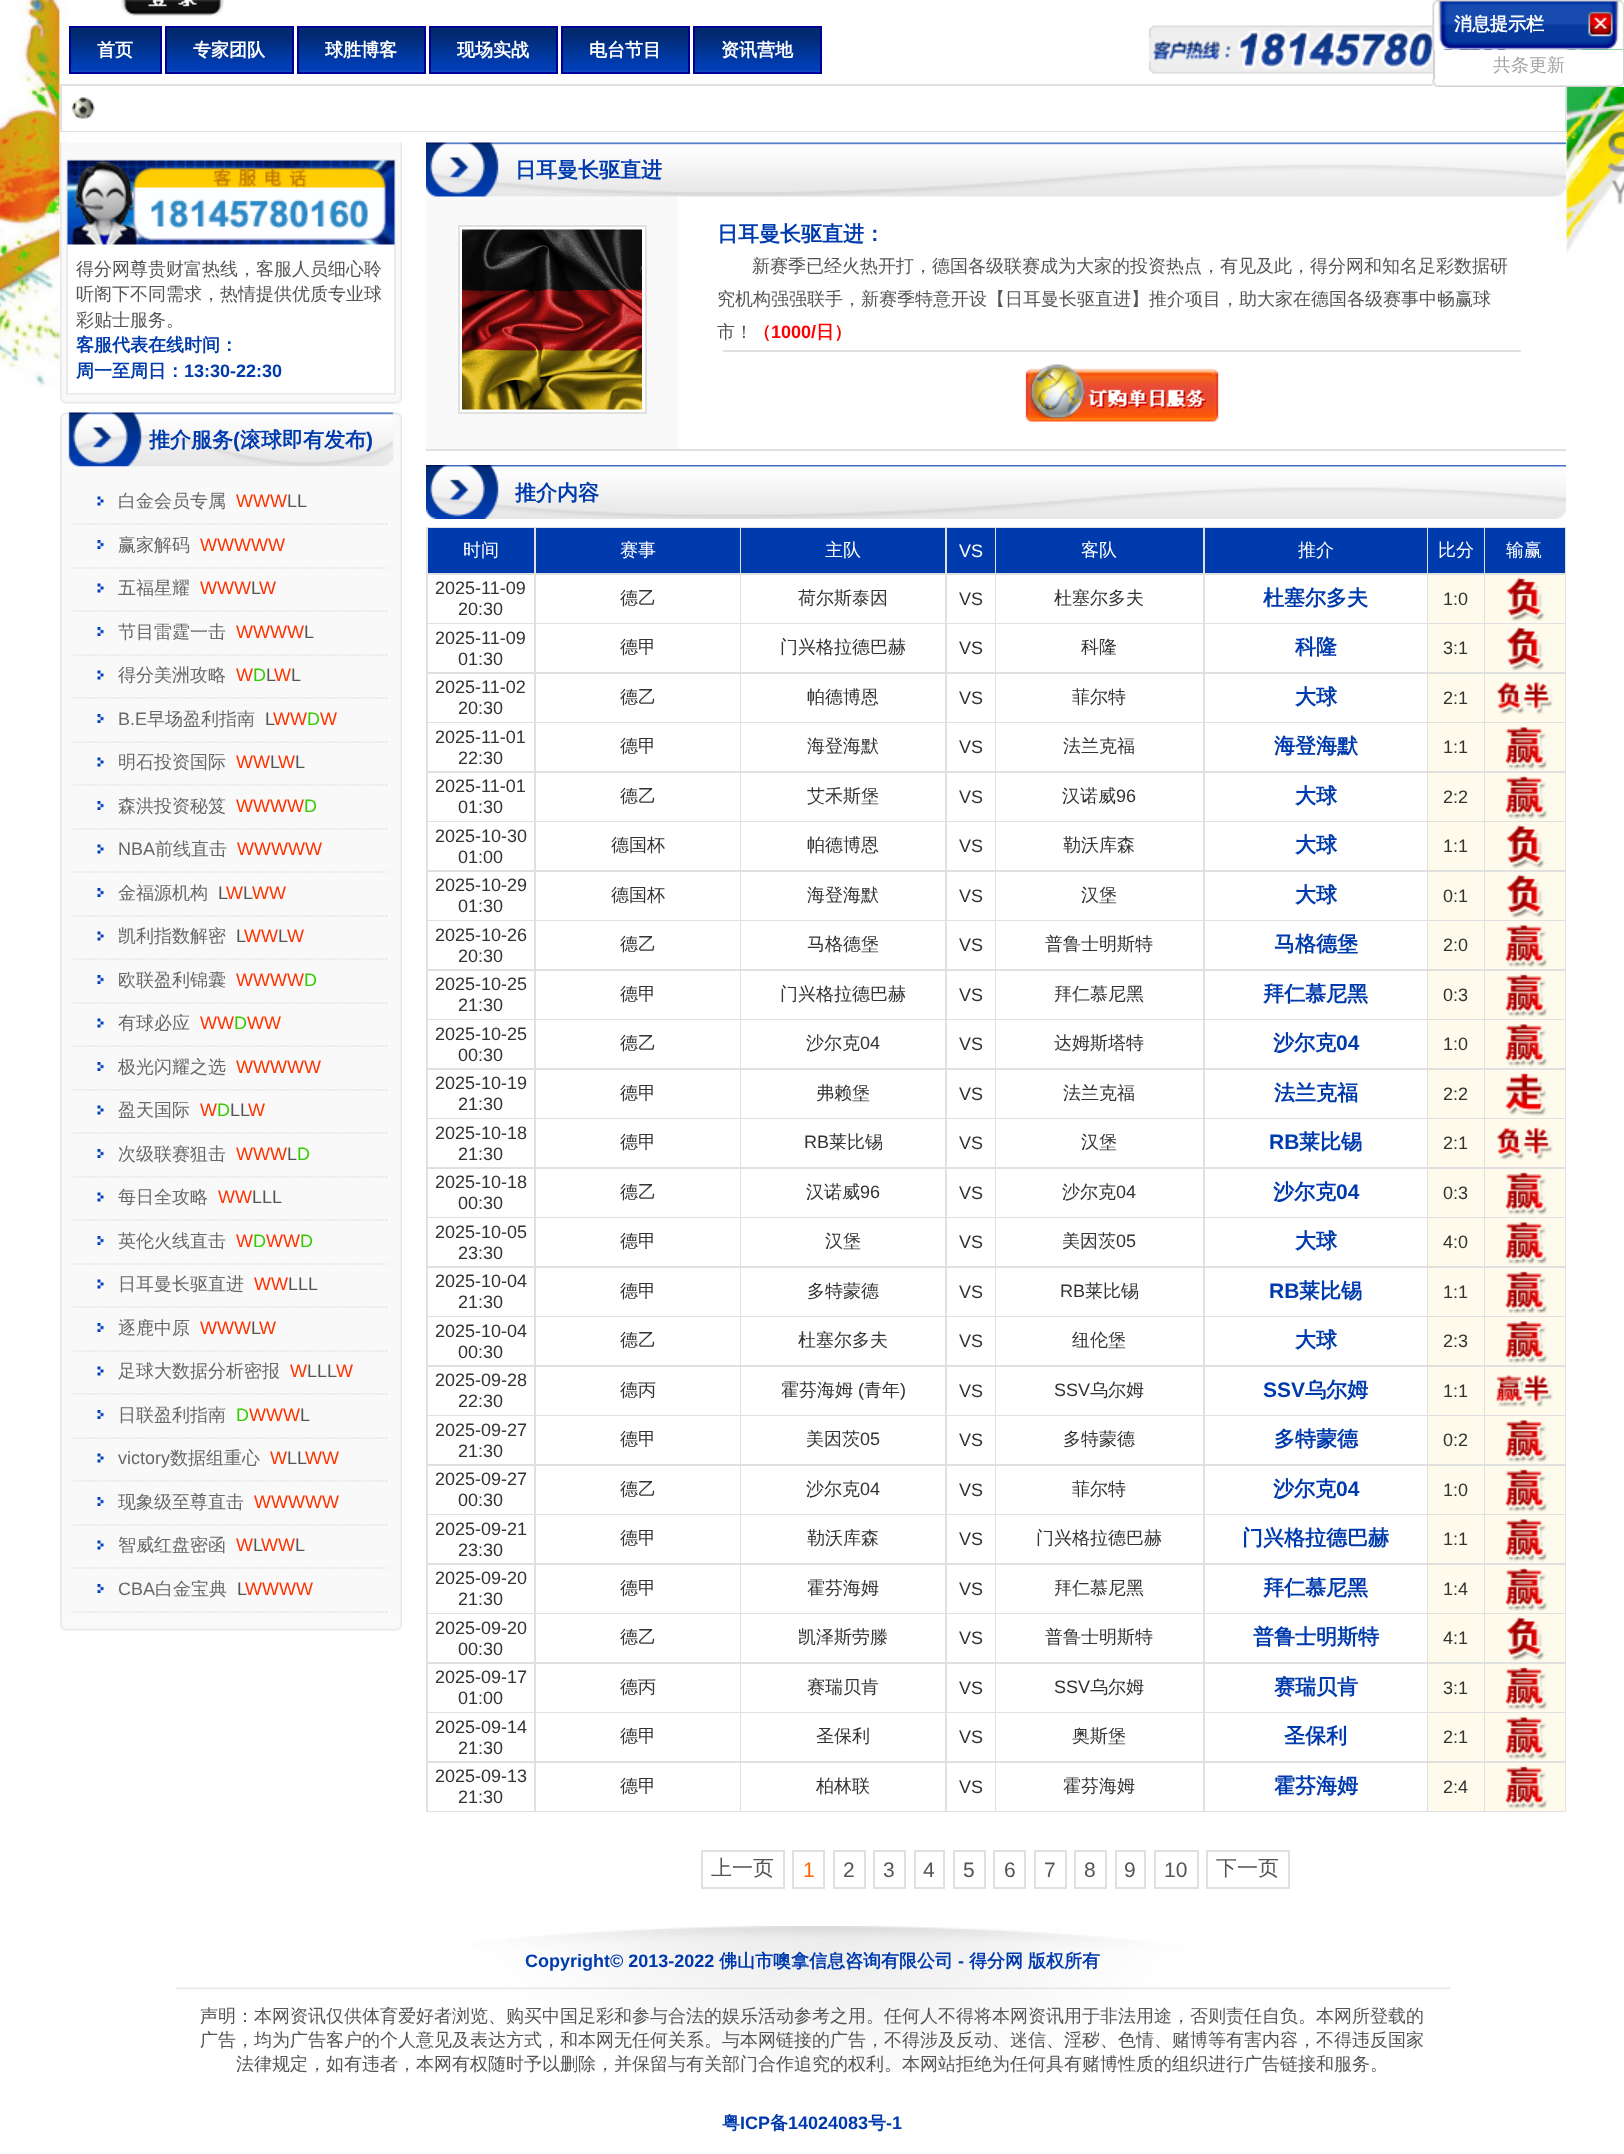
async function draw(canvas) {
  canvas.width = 1624;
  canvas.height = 2154;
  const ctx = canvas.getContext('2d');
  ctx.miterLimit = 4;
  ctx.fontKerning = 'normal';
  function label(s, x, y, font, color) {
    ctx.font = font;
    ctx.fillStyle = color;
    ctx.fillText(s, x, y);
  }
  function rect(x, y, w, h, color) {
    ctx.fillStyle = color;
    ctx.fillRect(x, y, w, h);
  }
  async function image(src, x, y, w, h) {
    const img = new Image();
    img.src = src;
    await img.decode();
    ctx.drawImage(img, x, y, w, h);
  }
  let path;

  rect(0, 0, 1624, 2154, '#fff');
  await image('assets/img1.png', 0, 0, 1624, 388);
  await image('assets/img2.png', 121, 0, 103, 16);
  await image('assets/img3.png', 71, 28, 89, 44);
  ctx.strokeStyle = '#009';
  ctx.lineWidth = 2;
  ctx.strokeRect(70, 27, 91, 46);
  label('首页', 97, 56, 'bold 18px WenQuanYi Zen Hei', '#fff');
  await image('assets/img4.png', 167, 28, 125, 44);
  ctx.strokeRect(166, 27, 127, 46);
  label('专家团队', 193, 56, 'bold 18px WenQuanYi Zen Hei', '#fff');
  await image('assets/img5.png', 299, 28, 125, 44);
  ctx.strokeRect(298, 27, 127, 46);
  label('球胜博客', 325, 56, 'bold 18px WenQuanYi Zen Hei', '#fff');
  await image('assets/img6.png', 431, 28, 125, 44);
  ctx.strokeRect(430, 27, 127, 46);
  label('现场实战', 457, 56, 'bold 18px WenQuanYi Zen Hei', '#fff');
  await image('assets/img7.png', 563, 28, 125, 44);
  ctx.strokeRect(562, 27, 127, 46);
  label('电台节目', 589, 56, 'bold 18px WenQuanYi Zen Hei', '#fff');
  await image('assets/img8.png', 695, 28, 125, 44);
  ctx.strokeRect(694, 27, 127, 46);
  label('资讯营地', 721, 56, 'bold 18px WenQuanYi Zen Hei', '#fff');
  await image('assets/img9.png', 1149, 25, 417, 49);
  ctx.strokeStyle = '#e0e0e0';
  ctx.strokeRect(61, 85, 1504, 46);
  rect(62, 86, 1503, 45, '#fff');
  await image('assets/img10.png', 71, 97, 24, 22);
  await image('assets/img11.png', 1432, 0, 192, 50);
  label('消息提示栏', 1454, 30, 'bold 18px WenQuanYi Zen Hei', '#fff');
  rect(1435, 50, 188, 30, '#fff');
  rect(1623, 50, 1, 30, '#d0d0d0');
  rect(1433, 50, 2, 30, '#d0d0d0');
  label('共条更新', 1493, 71, '500 18px WenQuanYi Zen Hei', '#a5a5a5');
  await image('assets/img12.png', 1432, 79, 192, 8);
  await image('assets/img13.png', 60, 142, 342, 253);
  rect(68, 244, 326, 149, '#fff');
  ctx.strokeStyle = '#e9e9e9';
  ctx.strokeRect(67, 160, 328, 234);
  await image('assets/img14.png', 67, 160, 328, 85);
  label('得分网尊贵财富热线，客服人员细心聆', 76, 275, '500 18px WenQuanYi Zen Hei', '#555');
  label('听阁下不同需求，热情提供优质专业球', 76, 300, '500 18px WenQuanYi Zen Hei', '#555');
  label('彩贴士服务。', 76, 326, '500 18px WenQuanYi Zen Hei', '#555');
  label('客服代表在线时间：', 76, 351, 'bold 18px WenQuanYi Zen Hei', '#003bad');
  label('周一至周日：', 76, 377, 'bold 18px WenQuanYi Zen Hei', '#003bad');
  label('13:30-22:30', 184, 377, 'bold 18px Liberation Sans', '#003bad');
  await image('assets/img15.png', 60, 394, 342, 10);
  await image('assets/img16.png', 60, 412, 342, 55);
  label('推介服务', 149, 447, 'bold 21px WenQuanYi Zen Hei', '#003bad');
  label('(', 233, 447, 'bold 21px Liberation Sans', '#003bad');
  label('滚球即有发布', 240, 447, 'bold 21px WenQuanYi Zen Hei', '#003bad');
  label(')', 366, 447, 'bold 21px Liberation Sans', '#003bad');
  await image('assets/img17.png', 60, 466, 342, 1156);
  await image('assets/img18.png', 97, 496, 7, 10);
  path = new Path2D('M73.5 524H388.5');
  ctx.strokeStyle = '#e0e0e0';
  ctx.lineWidth = 1.5;
  ctx.setLineDash([1.5, 1.5]);
  ctx.stroke(path);
  label('白金会员专属', 118, 507, '500 18px WenQuanYi Zen Hei', '#686868');
  label('WWW', 236, 507, '18px Liberation Sans', '#f30');
  label('LL', 287, 507, '18px Liberation Sans', '#555');
  await image('assets/img19.png', 97, 540, 7, 9);
  path = new Path2D('M73.5 568H388.5');
  ctx.stroke(path);
  label('赢家解码', 118, 551, '500 18px WenQuanYi Zen Hei', '#686868');
  label('WWWWW', 200, 551, '18px Liberation Sans', '#f30');
  await image('assets/img18.png', 97, 583, 7, 10);
  path = new Path2D('M73.5 611H388.5');
  ctx.stroke(path);
  label('五福星耀', 118, 594, '500 18px WenQuanYi Zen Hei', '#686868');
  label('WWW', 200, 594, '18px Liberation Sans', '#f30');
  label('L', 251, 594, '18px Liberation Sans', '#555');
  label('W', 259, 594, '18px Liberation Sans', '#f30');
  await image('assets/img19.png', 97, 627, 7, 9);
  path = new Path2D('M73.5 655H388.5');
  ctx.stroke(path);
  label('节目雷霆一击', 118, 638, '500 18px WenQuanYi Zen Hei', '#686868');
  label('WWWW', 236, 638, '18px Liberation Sans', '#f30');
  label('L', 304, 638, '18px Liberation Sans', '#555');
  await image('assets/img18.png', 97, 670, 7, 10);
  path = new Path2D('M73.5 698H388.5');
  ctx.stroke(path);
  label('得分美洲攻略', 118, 681, '500 18px WenQuanYi Zen Hei', '#686868');
  label('W', 236, 681, '18px Liberation Sans', '#f30');
  label('D', 253, 681, '18px Liberation Sans', '#3c0');
  label('L', 266, 681, '18px Liberation Sans', '#555');
  label('W', 274, 681, '18px Liberation Sans', '#f30');
  label('L', 291, 681, '18px Liberation Sans', '#555');
  await image('assets/img19.png', 97, 714, 7, 9);
  path = new Path2D('M73.5 742H388.5');
  ctx.stroke(path);
  label('B.E', 118, 725, '18px Liberation Sans', '#686868');
  label('早场盈利指南', 147, 725, '500 18px WenQuanYi Zen Hei', '#686868');
  label('L', 265, 725, '18px Liberation Sans', '#555');
  label('WW', 273, 725, '18px Liberation Sans', '#f30');
  label('D', 307, 725, '18px Liberation Sans', '#3c0');
  label('W', 320, 725, '18px Liberation Sans', '#f30');
  await image('assets/img18.png', 97, 757, 7, 10);
  path = new Path2D('M73.5 785H388.5');
  ctx.stroke(path);
  label('明石投资国际', 118, 768, '500 18px WenQuanYi Zen Hei', '#686868');
  label('WW', 236, 768, '18px Liberation Sans', '#f30');
  label('L', 270, 768, '18px Liberation Sans', '#555');
  label('W', 278, 768, '18px Liberation Sans', '#f30');
  label('L', 295, 768, '18px Liberation Sans', '#555');
  await image('assets/img19.png', 97, 801, 7, 9);
  path = new Path2D('M73.5 829H388.5');
  ctx.stroke(path);
  label('森洪投资秘笈', 118, 812, '500 18px WenQuanYi Zen Hei', '#686868');
  label('WWWW', 236, 812, '18px Liberation Sans', '#f30');
  label('D', 304, 812, '18px Liberation Sans', '#3c0');
  await image('assets/img18.png', 97, 844, 7, 10);
  path = new Path2D('M73.5 872H388.5');
  ctx.stroke(path);
  label('NBA', 118, 855, '18px Liberation Sans', '#686868');
  label('前线直击', 155, 855, '500 18px WenQuanYi Zen Hei', '#686868');
  label('WWWWW', 237, 855, '18px Liberation Sans', '#f30');
  await image('assets/img19.png', 97, 888, 7, 9);
  path = new Path2D('M73.5 916H388.5');
  ctx.stroke(path);
  label('金福源机构', 118, 899, '500 18px WenQuanYi Zen Hei', '#686868');
  label('L', 218, 899, '18px Liberation Sans', '#555');
  label('W', 226, 899, '18px Liberation Sans', '#f30');
  label('L', 243, 899, '18px Liberation Sans', '#555');
  label('WW', 252, 899, '18px Liberation Sans', '#f30');
  await image('assets/img18.png', 97, 931, 7, 10);
  path = new Path2D('M73.5 959H388.5');
  ctx.stroke(path);
  label('凯利指数解密', 118, 942, '500 18px WenQuanYi Zen Hei', '#686868');
  label('L', 236, 942, '18px Liberation Sans', '#555');
  label('WW', 244, 942, '18px Liberation Sans', '#f30');
  label('L', 278, 942, '18px Liberation Sans', '#555');
  label('W', 287, 942, '18px Liberation Sans', '#f30');
  await image('assets/img19.png', 97, 975, 7, 9);
  path = new Path2D('M73.5 1003H388.5');
  ctx.stroke(path);
  label('欧联盈利锦囊', 118, 986, '500 18px WenQuanYi Zen Hei', '#686868');
  label('WWWW', 236, 986, '18px Liberation Sans', '#f30');
  label('D', 304, 986, '18px Liberation Sans', '#3c0');
  await image('assets/img18.png', 97, 1018, 7, 10);
  path = new Path2D('M73.5 1046H388.5');
  ctx.stroke(path);
  label('有球必应', 118, 1029, '500 18px WenQuanYi Zen Hei', '#686868');
  label('WW', 200, 1029, '18px Liberation Sans', '#f30');
  label('D', 234, 1029, '18px Liberation Sans', '#3c0');
  label('WW', 247, 1029, '18px Liberation Sans', '#f30');
  await image('assets/img19.png', 97, 1062, 7, 9);
  path = new Path2D('M73.5 1090H388.5');
  ctx.stroke(path);
  label('极光闪耀之选', 118, 1073, '500 18px WenQuanYi Zen Hei', '#686868');
  label('WWWWW', 236, 1073, '18px Liberation Sans', '#f30');
  await image('assets/img18.png', 97, 1105, 7, 10);
  path = new Path2D('M73.5 1133H388.5');
  ctx.stroke(path);
  label('盈天国际', 118, 1116, '500 18px WenQuanYi Zen Hei', '#686868');
  label('W', 200, 1116, '18px Liberation Sans', '#f30');
  label('D', 217, 1116, '18px Liberation Sans', '#3c0');
  label('LL', 230, 1116, '18px Liberation Sans', '#555');
  label('W', 248, 1116, '18px Liberation Sans', '#f30');
  await image('assets/img19.png', 97, 1149, 7, 9);
  path = new Path2D('M73.5 1177H388.5');
  ctx.stroke(path);
  label('次级联赛狙击', 118, 1160, '500 18px WenQuanYi Zen Hei', '#686868');
  label('WWW', 236, 1160, '18px Liberation Sans', '#f30');
  label('L', 287, 1160, '18px Liberation Sans', '#555');
  label('D', 297, 1160, '18px Liberation Sans', '#3c0');
  await image('assets/img18.png', 97, 1192, 7, 10);
  path = new Path2D('M73.5 1220H388.5');
  ctx.stroke(path);
  label('每日全攻略', 118, 1203, '500 18px WenQuanYi Zen Hei', '#686868');
  label('WW', 218, 1203, '18px Liberation Sans', '#f30');
  label('LLL', 252, 1203, '18px Liberation Sans', '#555');
  await image('assets/img19.png', 97, 1236, 7, 9);
  path = new Path2D('M73.5 1264H388.5');
  ctx.stroke(path);
  label('英伦火线直击', 118, 1247, '500 18px WenQuanYi Zen Hei', '#686868');
  label('W', 236, 1247, '18px Liberation Sans', '#f30');
  label('D', 253, 1247, '18px Liberation Sans', '#3c0');
  label('WW', 266, 1247, '18px Liberation Sans', '#f30');
  label('D', 300, 1247, '18px Liberation Sans', '#3c0');
  await image('assets/img18.png', 97, 1279, 7, 10);
  path = new Path2D('M73.5 1307H388.5');
  ctx.stroke(path);
  label('日耳曼长驱直进', 118, 1290, '500 18px WenQuanYi Zen Hei', '#686868');
  label('WW', 254, 1290, '18px Liberation Sans', '#f30');
  label('LLL', 288, 1290, '18px Liberation Sans', '#555');
  await image('assets/img19.png', 97, 1323, 7, 9);
  path = new Path2D('M73.5 1351H388.5');
  ctx.stroke(path);
  label('逐鹿中原', 118, 1334, '500 18px WenQuanYi Zen Hei', '#686868');
  label('WWW', 200, 1334, '18px Liberation Sans', '#f30');
  label('L', 251, 1334, '18px Liberation Sans', '#555');
  label('W', 259, 1334, '18px Liberation Sans', '#f30');
  await image('assets/img18.png', 97, 1366, 7, 10);
  path = new Path2D('M73.5 1394H388.5');
  ctx.stroke(path);
  label('足球大数据分析密报', 118, 1377, '500 18px WenQuanYi Zen Hei', '#686868');
  label('W', 290, 1377, '18px Liberation Sans', '#f30');
  label('LLL', 307, 1377, '18px Liberation Sans', '#555');
  label('W', 336, 1377, '18px Liberation Sans', '#f30');
  await image('assets/img19.png', 97, 1410, 7, 9);
  path = new Path2D('M73.5 1438H388.5');
  ctx.stroke(path);
  label('日联盈利指南', 118, 1421, '500 18px WenQuanYi Zen Hei', '#686868');
  label('D', 236, 1421, '18px Liberation Sans', '#3c0');
  label('WWW', 249, 1421, '18px Liberation Sans', '#f30');
  label('L', 300, 1421, '18px Liberation Sans', '#555');
  await image('assets/img18.png', 97, 1453, 7, 10);
  path = new Path2D('M73.5 1481H388.5');
  ctx.stroke(path);
  label('victory', 118, 1464, '18px Liberation Sans', '#686868');
  label('数据组重心', 170, 1464, '500 18px WenQuanYi Zen Hei', '#686868');
  label('W', 270, 1464, '18px Liberation Sans', '#f30');
  label('LL', 287, 1464, '18px Liberation Sans', '#555');
  label('WW', 305, 1464, '18px Liberation Sans', '#f30');
  await image('assets/img19.png', 97, 1497, 7, 9);
  path = new Path2D('M73.5 1525H388.5');
  ctx.stroke(path);
  label('现象级至尊直击', 118, 1508, '500 18px WenQuanYi Zen Hei', '#686868');
  label('WWWWW', 254, 1508, '18px Liberation Sans', '#f30');
  await image('assets/img18.png', 97, 1540, 7, 10);
  path = new Path2D('M73.5 1568H388.5');
  ctx.stroke(path);
  label('智威红盘密函', 118, 1551, '500 18px WenQuanYi Zen Hei', '#686868');
  label('W', 236, 1551, '18px Liberation Sans', '#f30');
  label('L', 253, 1551, '18px Liberation Sans', '#555');
  label('WW', 261, 1551, '18px Liberation Sans', '#f30');
  label('L', 295, 1551, '18px Liberation Sans', '#555');
  await image('assets/img19.png', 97, 1584, 7, 9);
  path = new Path2D('M73.5 1612H388.5');
  ctx.stroke(path);
  label('CBA', 118, 1595, '18px Liberation Sans', '#686868');
  label('白金宝典', 155, 1595, '500 18px WenQuanYi Zen Hei', '#686868');
  label('L', 237, 1595, '18px Liberation Sans', '#555');
  label('WWWW', 245, 1595, '18px Liberation Sans', '#f30');
  await image('assets/img20.png', 60, 1621, 342, 10);
  await image('assets/img21.png', 426, 142, 1140, 55);
  label('日耳曼长驱直进', 515, 177, 'bold 21px WenQuanYi Zen Hei', '#003bad');
  rect(426, 197, 252, 252, '#f9f9f9');
  rect(426, 449, 1140, 2, '#e0e0e0');
  ctx.fillStyle = '#fff';
  ctx.beginPath();
  ctx.rect(459, 226, 187, 187);
  ctx.fill();
  ctx.lineWidth = 2;
  ctx.setLineDash([]);
  ctx.stroke();
  await image('assets/img22.png', 462, 229, 180, 181);
  label('日耳曼长驱直进：', 717, 241, 'bold 21px WenQuanYi Zen Hei', '#003bad');
  label('新赛季已经火热开打，德国各级联赛成为大家的投资热点，有见及此，得分网和知名足彩数据研', 752, 272, '500 18px WenQuanYi Zen Hei', '#555');
  label('究机构强强联手，新赛季特意开设【日耳曼长驱直进】推介项目，助大家在德国各级赛事中畅赢球', 717, 305, '500 18px WenQuanYi Zen Hei', '#555');
  label('市！', 717, 338, '500 18px WenQuanYi Zen Hei', '#555');
  label('（', 753, 338, 'bold 18px WenQuanYi Zen Hei', '#f00');
  label('1000/', 771, 338, 'bold 18px Liberation Sans', '#f00');
  label('日）', 816, 338, 'bold 18px WenQuanYi Zen Hei', '#f00');
  rect(723, 350, 798, 2, '#e0e0e0');
  await image('assets/img23.png', 1025, 364, 194, 58);
  await image('assets/img24.png', 426, 465, 1140, 54);
  label('推介内容', 515, 500, 'bold 21px WenQuanYi Zen Hei', '#003bad');
  rect(426, 527, 1140, 1285, '#e0e0e0');
  rect(428, 528, 106, 45, '#003bad');
  label('时间', 463, 556, '500 18px WenQuanYi Zen Hei', '#fff');
  rect(536, 528, 204, 45, '#003bad');
  label('赛事', 620, 556, '500 18px WenQuanYi Zen Hei', '#fff');
  rect(741, 528, 204, 45, '#003bad');
  label('主队', 825, 556, '500 18px WenQuanYi Zen Hei', '#fff');
  rect(947, 528, 48, 45, '#003bad');
  label('VS', 959, 557, '18px Liberation Sans', '#fff');
  rect(996, 528, 207, 45, '#003bad');
  label('客队', 1081, 556, '500 18px WenQuanYi Zen Hei', '#fff');
  rect(1205, 528, 222, 45, '#003bad');
  label('推介', 1298, 556, '500 18px WenQuanYi Zen Hei', '#fff');
  rect(1428, 528, 56, 45, '#003bad');
  label('比分', 1438, 556, '500 18px WenQuanYi Zen Hei', '#fff');
  rect(1485, 528, 80, 45, '#003bad');
  label('输赢', 1506, 556, '500 18px WenQuanYi Zen Hei', '#fff');
  rect(428, 575, 106, 48, '#fff');
  label('2025-11-09', 435, 594, '18px Liberation Sans', '#333');
  label('20:30', 458, 615, '18px Liberation Sans', '#333');
  rect(536, 575, 204, 48, '#fff');
  label('德乙', 620, 604, '500 18px WenQuanYi Zen Hei', '#333');
  rect(741, 575, 204, 48, '#fff');
  label('荷尔斯泰因', 798, 604, '500 18px WenQuanYi Zen Hei', '#333');
  rect(947, 575, 48, 48, '#fff');
  label('VS', 959, 605, '18px Liberation Sans', '#333');
  rect(996, 575, 207, 48, '#fff');
  label('杜塞尔多夫', 1054, 604, '500 18px WenQuanYi Zen Hei', '#333');
  rect(1205, 575, 222, 48, '#fff');
  label('杜塞尔多夫', 1263, 605, 'bold 21px WenQuanYi Zen Hei', '#003bad');
  rect(1428, 575, 56, 48, '#fffbec');
  label('1:0', 1443, 605, '18px Liberation Sans', '#333');
  rect(1485, 575, 80, 48, '#fffbec');
  await image('assets/img25.png', 1506, 577, 39, 44);
  rect(428, 624, 106, 48, '#fff');
  label('2025-11-09', 435, 644, '18px Liberation Sans', '#333');
  label('01:30', 458, 665, '18px Liberation Sans', '#333');
  rect(536, 624, 204, 48, '#fff');
  label('德甲', 620, 653, '500 18px WenQuanYi Zen Hei', '#333');
  rect(741, 624, 204, 48, '#fff');
  label('门兴格拉德巴赫', 780, 653, '500 18px WenQuanYi Zen Hei', '#333');
  rect(947, 624, 48, 48, '#fff');
  label('VS', 959, 654, '18px Liberation Sans', '#333');
  rect(996, 624, 207, 48, '#fff');
  label('科隆', 1081, 653, '500 18px WenQuanYi Zen Hei', '#333');
  rect(1205, 624, 222, 48, '#fff');
  label('科隆', 1295, 654, 'bold 21px WenQuanYi Zen Hei', '#003bad');
  rect(1428, 624, 56, 48, '#fffbec');
  label('3:1', 1443, 654, '18px Liberation Sans', '#333');
  rect(1485, 624, 80, 48, '#fffbec');
  await image('assets/img26.png', 1506, 626, 39, 45);
  rect(428, 674, 106, 48, '#fff');
  label('2025-11-02', 435, 693, '18px Liberation Sans', '#333');
  label('20:30', 458, 714, '18px Liberation Sans', '#333');
  rect(536, 674, 204, 48, '#fff');
  label('德乙', 620, 703, '500 18px WenQuanYi Zen Hei', '#333');
  rect(741, 674, 204, 48, '#fff');
  label('帕德博恩', 807, 703, '500 18px WenQuanYi Zen Hei', '#333');
  rect(947, 674, 48, 48, '#fff');
  label('VS', 959, 704, '18px Liberation Sans', '#333');
  rect(996, 674, 207, 48, '#fff');
  label('菲尔特', 1072, 703, '500 18px WenQuanYi Zen Hei', '#333');
  rect(1205, 674, 222, 48, '#fff');
  label('大球', 1295, 704, 'bold 21px WenQuanYi Zen Hei', '#003bad');
  rect(1428, 674, 56, 48, '#fffbec');
  label('2:1', 1443, 704, '18px Liberation Sans', '#333');
  rect(1485, 674, 80, 48, '#fffbec');
  await image('assets/img27.png', 1496, 682, 57, 33);
  rect(428, 723, 106, 48, '#fff');
  label('2025-11-01', 435, 743, '18px Liberation Sans', '#333');
  label('22:30', 458, 764, '18px Liberation Sans', '#333');
  rect(536, 723, 204, 48, '#fff');
  label('德甲', 620, 752, '500 18px WenQuanYi Zen Hei', '#333');
  rect(741, 723, 204, 48, '#fff');
  label('海登海默', 807, 752, '500 18px WenQuanYi Zen Hei', '#333');
  rect(947, 723, 48, 48, '#fff');
  label('VS', 959, 753, '18px Liberation Sans', '#333');
  rect(996, 723, 207, 48, '#fff');
  label('法兰克福', 1063, 752, '500 18px WenQuanYi Zen Hei', '#333');
  rect(1205, 723, 222, 48, '#fff');
  label('海登海默', 1274, 753, 'bold 21px WenQuanYi Zen Hei', '#003bad');
  rect(1428, 723, 56, 48, '#fffbec');
  label('1:1', 1443, 753, '18px Liberation Sans', '#333');
  rect(1485, 723, 80, 48, '#fffbec');
  await image('assets/img28.png', 1505, 727, 43, 43);
  rect(428, 773, 106, 48, '#fff');
  label('2025-11-01', 435, 792, '18px Liberation Sans', '#333');
  label('01:30', 458, 813, '18px Liberation Sans', '#333');
  rect(536, 773, 204, 48, '#fff');
  label('德乙', 620, 802, '500 18px WenQuanYi Zen Hei', '#333');
  rect(741, 773, 204, 48, '#fff');
  label('艾禾斯堡', 807, 802, '500 18px WenQuanYi Zen Hei', '#333');
  rect(947, 773, 48, 48, '#fff');
  label('VS', 959, 803, '18px Liberation Sans', '#333');
  rect(996, 773, 207, 48, '#fff');
  label('汉诺威', 1062, 802, '500 18px WenQuanYi Zen Hei', '#333');
  label('96', 1116, 802, '18px Liberation Sans', '#333');
  rect(1205, 773, 222, 48, '#fff');
  label('大球', 1295, 803, 'bold 21px WenQuanYi Zen Hei', '#003bad');
  rect(1428, 773, 56, 48, '#fffbec');
  label('2:2', 1443, 803, '18px Liberation Sans', '#333');
  rect(1485, 773, 80, 48, '#fffbec');
  await image('assets/img29.png', 1505, 776, 43, 43);
  rect(428, 822, 106, 48, '#fff');
  label('2025-10-30', 435, 842, '18px Liberation Sans', '#333');
  label('01:00', 458, 863, '18px Liberation Sans', '#333');
  rect(536, 822, 204, 48, '#fff');
  label('德国杯', 611, 851, '500 18px WenQuanYi Zen Hei', '#333');
  rect(741, 822, 204, 48, '#fff');
  label('帕德博恩', 807, 851, '500 18px WenQuanYi Zen Hei', '#333');
  rect(947, 822, 48, 48, '#fff');
  label('VS', 959, 852, '18px Liberation Sans', '#333');
  rect(996, 822, 207, 48, '#fff');
  label('勒沃库森', 1063, 851, '500 18px WenQuanYi Zen Hei', '#333');
  rect(1205, 822, 222, 48, '#fff');
  label('大球', 1295, 852, 'bold 21px WenQuanYi Zen Hei', '#003bad');
  rect(1428, 822, 56, 48, '#fffbec');
  label('1:1', 1443, 852, '18px Liberation Sans', '#333');
  rect(1485, 822, 80, 48, '#fffbec');
  await image('assets/img26.png', 1506, 824, 39, 45);
  rect(428, 872, 106, 48, '#fff');
  label('2025-10-29', 435, 891, '18px Liberation Sans', '#333');
  label('01:30', 458, 912, '18px Liberation Sans', '#333');
  rect(536, 872, 204, 48, '#fff');
  label('德国杯', 611, 901, '500 18px WenQuanYi Zen Hei', '#333');
  rect(741, 872, 204, 48, '#fff');
  label('海登海默', 807, 901, '500 18px WenQuanYi Zen Hei', '#333');
  rect(947, 872, 48, 48, '#fff');
  label('VS', 959, 902, '18px Liberation Sans', '#333');
  rect(996, 872, 207, 48, '#fff');
  label('汉堡', 1081, 901, '500 18px WenQuanYi Zen Hei', '#333');
  rect(1205, 872, 222, 48, '#fff');
  label('大球', 1295, 902, 'bold 21px WenQuanYi Zen Hei', '#003bad');
  rect(1428, 872, 56, 48, '#fffbec');
  label('0:1', 1443, 902, '18px Liberation Sans', '#333');
  rect(1485, 872, 80, 48, '#fffbec');
  await image('assets/img25.png', 1506, 874, 39, 44);
  rect(428, 921, 106, 48, '#fff');
  label('2025-10-26', 435, 941, '18px Liberation Sans', '#333');
  label('20:30', 458, 962, '18px Liberation Sans', '#333');
  rect(536, 921, 204, 48, '#fff');
  label('德乙', 620, 950, '500 18px WenQuanYi Zen Hei', '#333');
  rect(741, 921, 204, 48, '#fff');
  label('马格德堡', 807, 950, '500 18px WenQuanYi Zen Hei', '#333');
  rect(947, 921, 48, 48, '#fff');
  label('VS', 959, 951, '18px Liberation Sans', '#333');
  rect(996, 921, 207, 48, '#fff');
  label('普鲁士明斯特', 1045, 950, '500 18px WenQuanYi Zen Hei', '#333');
  rect(1205, 921, 222, 48, '#fff');
  label('马格德堡', 1274, 951, 'bold 21px WenQuanYi Zen Hei', '#003bad');
  rect(1428, 921, 56, 48, '#fffbec');
  label('2:0', 1443, 951, '18px Liberation Sans', '#333');
  rect(1485, 921, 80, 48, '#fffbec');
  await image('assets/img28.png', 1505, 925, 43, 43);
  rect(428, 971, 106, 48, '#fff');
  label('2025-10-25', 435, 990, '18px Liberation Sans', '#333');
  label('21:30', 458, 1011, '18px Liberation Sans', '#333');
  rect(536, 971, 204, 48, '#fff');
  label('德甲', 620, 1000, '500 18px WenQuanYi Zen Hei', '#333');
  rect(741, 971, 204, 48, '#fff');
  label('门兴格拉德巴赫', 780, 1000, '500 18px WenQuanYi Zen Hei', '#333');
  rect(947, 971, 48, 48, '#fff');
  label('VS', 959, 1001, '18px Liberation Sans', '#333');
  rect(996, 971, 207, 48, '#fff');
  label('拜仁慕尼黑', 1054, 1000, '500 18px WenQuanYi Zen Hei', '#333');
  rect(1205, 971, 222, 48, '#fff');
  label('拜仁慕尼黑', 1263, 1001, 'bold 21px WenQuanYi Zen Hei', '#003bad');
  rect(1428, 971, 56, 48, '#fffbec');
  label('0:3', 1443, 1001, '18px Liberation Sans', '#333');
  rect(1485, 971, 80, 48, '#fffbec');
  await image('assets/img29.png', 1505, 974, 43, 43);
  rect(428, 1020, 106, 48, '#fff');
  label('2025-10-25', 435, 1040, '18px Liberation Sans', '#333');
  label('00:30', 458, 1061, '18px Liberation Sans', '#333');
  rect(536, 1020, 204, 48, '#fff');
  label('德乙', 620, 1049, '500 18px WenQuanYi Zen Hei', '#333');
  rect(741, 1020, 204, 48, '#fff');
  label('沙尔克', 806, 1049, '500 18px WenQuanYi Zen Hei', '#333');
  label('04', 860, 1049, '18px Liberation Sans', '#333');
  rect(947, 1020, 48, 48, '#fff');
  label('VS', 959, 1050, '18px Liberation Sans', '#333');
  rect(996, 1020, 207, 48, '#fff');
  label('达姆斯塔特', 1054, 1049, '500 18px WenQuanYi Zen Hei', '#333');
  rect(1205, 1020, 222, 48, '#fff');
  label('沙尔克', 1273, 1050, 'bold 21px WenQuanYi Zen Hei', '#003bad');
  label('04', 1336, 1050, 'bold 21px Liberation Sans', '#003bad');
  rect(1428, 1020, 56, 48, '#fffbec');
  label('1:0', 1443, 1050, '18px Liberation Sans', '#333');
  rect(1485, 1020, 80, 48, '#fffbec');
  await image('assets/img28.png', 1505, 1024, 43, 43);
  rect(428, 1070, 106, 48, '#fff');
  label('2025-10-19', 435, 1089, '18px Liberation Sans', '#333');
  label('21:30', 458, 1110, '18px Liberation Sans', '#333');
  rect(536, 1070, 204, 48, '#fff');
  label('德甲', 620, 1099, '500 18px WenQuanYi Zen Hei', '#333');
  rect(741, 1070, 204, 48, '#fff');
  label('弗赖堡', 816, 1099, '500 18px WenQuanYi Zen Hei', '#333');
  rect(947, 1070, 48, 48, '#fff');
  label('VS', 959, 1100, '18px Liberation Sans', '#333');
  rect(996, 1070, 207, 48, '#fff');
  label('法兰克福', 1063, 1099, '500 18px WenQuanYi Zen Hei', '#333');
  rect(1205, 1070, 222, 48, '#fff');
  label('法兰克福', 1274, 1100, 'bold 21px WenQuanYi Zen Hei', '#003bad');
  rect(1428, 1070, 56, 48, '#fffbec');
  label('2:2', 1443, 1100, '18px Liberation Sans', '#333');
  rect(1485, 1070, 80, 48, '#fffbec');
  await image('assets/img30.png', 1505, 1073, 42, 43);
  rect(428, 1119, 106, 48, '#fff');
  label('2025-10-18', 435, 1139, '18px Liberation Sans', '#333');
  label('21:30', 458, 1160, '18px Liberation Sans', '#333');
  rect(536, 1119, 204, 48, '#fff');
  label('德甲', 620, 1148, '500 18px WenQuanYi Zen Hei', '#333');
  rect(741, 1119, 204, 48, '#fff');
  label('RB', 804, 1148, '18px Liberation Sans', '#333');
  label('莱比锡', 829, 1148, '500 18px WenQuanYi Zen Hei', '#333');
  rect(947, 1119, 48, 48, '#fff');
  label('VS', 959, 1149, '18px Liberation Sans', '#333');
  rect(996, 1119, 207, 48, '#fff');
  label('汉堡', 1081, 1148, '500 18px WenQuanYi Zen Hei', '#333');
  rect(1205, 1119, 222, 48, '#fff');
  label('RB', 1269, 1149, 'bold 21px Liberation Sans', '#003bad');
  label('莱比锡', 1299, 1149, 'bold 21px WenQuanYi Zen Hei', '#003bad');
  rect(1428, 1119, 56, 48, '#fffbec');
  label('2:1', 1443, 1149, '18px Liberation Sans', '#333');
  rect(1485, 1119, 80, 48, '#fffbec');
  await image('assets/img31.png', 1496, 1127, 57, 33);
  rect(428, 1169, 106, 48, '#fff');
  label('2025-10-18', 435, 1188, '18px Liberation Sans', '#333');
  label('00:30', 458, 1209, '18px Liberation Sans', '#333');
  rect(536, 1169, 204, 48, '#fff');
  label('德乙', 620, 1198, '500 18px WenQuanYi Zen Hei', '#333');
  rect(741, 1169, 204, 48, '#fff');
  label('汉诺威', 806, 1198, '500 18px WenQuanYi Zen Hei', '#333');
  label('96', 860, 1198, '18px Liberation Sans', '#333');
  rect(947, 1169, 48, 48, '#fff');
  label('VS', 959, 1199, '18px Liberation Sans', '#333');
  rect(996, 1169, 207, 48, '#fff');
  label('沙尔克', 1062, 1198, '500 18px WenQuanYi Zen Hei', '#333');
  label('04', 1116, 1198, '18px Liberation Sans', '#333');
  rect(1205, 1169, 222, 48, '#fff');
  label('沙尔克', 1273, 1199, 'bold 21px WenQuanYi Zen Hei', '#003bad');
  label('04', 1336, 1199, 'bold 21px Liberation Sans', '#003bad');
  rect(1428, 1169, 56, 48, '#fffbec');
  label('0:3', 1443, 1199, '18px Liberation Sans', '#333');
  rect(1485, 1169, 80, 48, '#fffbec');
  await image('assets/img29.png', 1505, 1172, 43, 43);
  rect(428, 1218, 106, 48, '#fff');
  label('2025-10-05', 435, 1238, '18px Liberation Sans', '#333');
  label('23:30', 458, 1259, '18px Liberation Sans', '#333');
  rect(536, 1218, 204, 48, '#fff');
  label('德甲', 620, 1247, '500 18px WenQuanYi Zen Hei', '#333');
  rect(741, 1218, 204, 48, '#fff');
  label('汉堡', 825, 1247, '500 18px WenQuanYi Zen Hei', '#333');
  rect(947, 1218, 48, 48, '#fff');
  label('VS', 959, 1248, '18px Liberation Sans', '#333');
  rect(996, 1218, 207, 48, '#fff');
  label('美因茨', 1062, 1247, '500 18px WenQuanYi Zen Hei', '#333');
  label('05', 1116, 1247, '18px Liberation Sans', '#333');
  rect(1205, 1218, 222, 48, '#fff');
  label('大球', 1295, 1248, 'bold 21px WenQuanYi Zen Hei', '#003bad');
  rect(1428, 1218, 56, 48, '#fffbec');
  label('4:0', 1443, 1248, '18px Liberation Sans', '#333');
  rect(1485, 1218, 80, 48, '#fffbec');
  await image('assets/img28.png', 1505, 1222, 43, 43);
  rect(428, 1268, 106, 48, '#fff');
  label('2025-10-04', 435, 1287, '18px Liberation Sans', '#333');
  label('21:30', 458, 1308, '18px Liberation Sans', '#333');
  rect(536, 1268, 204, 48, '#fff');
  label('德甲', 620, 1297, '500 18px WenQuanYi Zen Hei', '#333');
  rect(741, 1268, 204, 48, '#fff');
  label('多特蒙德', 807, 1297, '500 18px WenQuanYi Zen Hei', '#333');
  rect(947, 1268, 48, 48, '#fff');
  label('VS', 959, 1298, '18px Liberation Sans', '#333');
  rect(996, 1268, 207, 48, '#fff');
  label('RB', 1060, 1297, '18px Liberation Sans', '#333');
  label('莱比锡', 1085, 1297, '500 18px WenQuanYi Zen Hei', '#333');
  rect(1205, 1268, 222, 48, '#fff');
  label('RB', 1269, 1298, 'bold 21px Liberation Sans', '#003bad');
  label('莱比锡', 1299, 1298, 'bold 21px WenQuanYi Zen Hei', '#003bad');
  rect(1428, 1268, 56, 48, '#fffbec');
  label('1:1', 1443, 1298, '18px Liberation Sans', '#333');
  rect(1485, 1268, 80, 48, '#fffbec');
  await image('assets/img29.png', 1505, 1271, 43, 43);
  rect(428, 1317, 106, 48, '#fff');
  label('2025-10-04', 435, 1337, '18px Liberation Sans', '#333');
  label('00:30', 458, 1358, '18px Liberation Sans', '#333');
  rect(536, 1317, 204, 48, '#fff');
  label('德乙', 620, 1346, '500 18px WenQuanYi Zen Hei', '#333');
  rect(741, 1317, 204, 48, '#fff');
  label('杜塞尔多夫', 798, 1346, '500 18px WenQuanYi Zen Hei', '#333');
  rect(947, 1317, 48, 48, '#fff');
  label('VS', 959, 1347, '18px Liberation Sans', '#333');
  rect(996, 1317, 207, 48, '#fff');
  label('纽伦堡', 1072, 1346, '500 18px WenQuanYi Zen Hei', '#333');
  rect(1205, 1317, 222, 48, '#fff');
  label('大球', 1295, 1347, 'bold 21px WenQuanYi Zen Hei', '#003bad');
  rect(1428, 1317, 56, 48, '#fffbec');
  label('2:3', 1443, 1347, '18px Liberation Sans', '#333');
  rect(1485, 1317, 80, 48, '#fffbec');
  await image('assets/img28.png', 1505, 1321, 43, 43);
  rect(428, 1367, 106, 48, '#fff');
  label('2025-09-28', 435, 1386, '18px Liberation Sans', '#333');
  label('22:30', 458, 1407, '18px Liberation Sans', '#333');
  rect(536, 1367, 204, 48, '#fff');
  label('德丙', 620, 1396, '500 18px WenQuanYi Zen Hei', '#333');
  rect(741, 1367, 204, 48, '#fff');
  label('霍芬海姆', 781, 1396, '500 18px WenQuanYi Zen Hei', '#333');
  label('(', 858, 1396, '18px Liberation Sans', '#333');
  label('青年', 864, 1396, '500 18px WenQuanYi Zen Hei', '#333');
  label(')', 900, 1396, '18px Liberation Sans', '#333');
  rect(947, 1367, 48, 48, '#fff');
  label('VS', 959, 1397, '18px Liberation Sans', '#333');
  rect(996, 1367, 207, 48, '#fff');
  label('SSV', 1054, 1396, '18px Liberation Sans', '#333');
  label('乌尔姆', 1090, 1396, '500 18px WenQuanYi Zen Hei', '#333');
  rect(1205, 1367, 222, 48, '#fff');
  label('SSV', 1263, 1397, 'bold 21px Liberation Sans', '#003bad');
  label('乌尔姆', 1305, 1397, 'bold 21px WenQuanYi Zen Hei', '#003bad');
  rect(1428, 1367, 56, 48, '#fffbec');
  label('1:1', 1443, 1397, '18px Liberation Sans', '#333');
  rect(1485, 1367, 80, 48, '#fffbec');
  await image('assets/img32.png', 1495, 1375, 58, 32);
  rect(428, 1416, 106, 48, '#fff');
  label('2025-09-27', 435, 1436, '18px Liberation Sans', '#333');
  label('21:30', 458, 1457, '18px Liberation Sans', '#333');
  rect(536, 1416, 204, 48, '#fff');
  label('德甲', 620, 1445, '500 18px WenQuanYi Zen Hei', '#333');
  rect(741, 1416, 204, 48, '#fff');
  label('美因茨', 806, 1445, '500 18px WenQuanYi Zen Hei', '#333');
  label('05', 860, 1445, '18px Liberation Sans', '#333');
  rect(947, 1416, 48, 48, '#fff');
  label('VS', 959, 1446, '18px Liberation Sans', '#333');
  rect(996, 1416, 207, 48, '#fff');
  label('多特蒙德', 1063, 1445, '500 18px WenQuanYi Zen Hei', '#333');
  rect(1205, 1416, 222, 48, '#fff');
  label('多特蒙德', 1274, 1446, 'bold 21px WenQuanYi Zen Hei', '#003bad');
  rect(1428, 1416, 56, 48, '#fffbec');
  label('0:2', 1443, 1446, '18px Liberation Sans', '#333');
  rect(1485, 1416, 80, 48, '#fffbec');
  await image('assets/img28.png', 1505, 1420, 43, 43);
  rect(428, 1466, 106, 48, '#fff');
  label('2025-09-27', 435, 1485, '18px Liberation Sans', '#333');
  label('00:30', 458, 1506, '18px Liberation Sans', '#333');
  rect(536, 1466, 204, 48, '#fff');
  label('德乙', 620, 1495, '500 18px WenQuanYi Zen Hei', '#333');
  rect(741, 1466, 204, 48, '#fff');
  label('沙尔克', 806, 1495, '500 18px WenQuanYi Zen Hei', '#333');
  label('04', 860, 1495, '18px Liberation Sans', '#333');
  rect(947, 1466, 48, 48, '#fff');
  label('VS', 959, 1496, '18px Liberation Sans', '#333');
  rect(996, 1466, 207, 48, '#fff');
  label('菲尔特', 1072, 1495, '500 18px WenQuanYi Zen Hei', '#333');
  rect(1205, 1466, 222, 48, '#fff');
  label('沙尔克', 1273, 1496, 'bold 21px WenQuanYi Zen Hei', '#003bad');
  label('04', 1336, 1496, 'bold 21px Liberation Sans', '#003bad');
  rect(1428, 1466, 56, 48, '#fffbec');
  label('1:0', 1443, 1496, '18px Liberation Sans', '#333');
  rect(1485, 1466, 80, 48, '#fffbec');
  await image('assets/img29.png', 1505, 1469, 43, 43);
  rect(428, 1515, 106, 48, '#fff');
  label('2025-09-21', 435, 1535, '18px Liberation Sans', '#333');
  label('23:30', 458, 1556, '18px Liberation Sans', '#333');
  rect(536, 1515, 204, 48, '#fff');
  label('德甲', 620, 1544, '500 18px WenQuanYi Zen Hei', '#333');
  rect(741, 1515, 204, 48, '#fff');
  label('勒沃库森', 807, 1544, '500 18px WenQuanYi Zen Hei', '#333');
  rect(947, 1515, 48, 48, '#fff');
  label('VS', 959, 1545, '18px Liberation Sans', '#333');
  rect(996, 1515, 207, 48, '#fff');
  label('门兴格拉德巴赫', 1036, 1544, '500 18px WenQuanYi Zen Hei', '#333');
  rect(1205, 1515, 222, 48, '#fff');
  label('门兴格拉德巴赫', 1242, 1545, 'bold 21px WenQuanYi Zen Hei', '#003bad');
  rect(1428, 1515, 56, 48, '#fffbec');
  label('1:1', 1443, 1545, '18px Liberation Sans', '#333');
  rect(1485, 1515, 80, 48, '#fffbec');
  await image('assets/img28.png', 1505, 1519, 43, 43);
  rect(428, 1565, 106, 48, '#fff');
  label('2025-09-20', 435, 1584, '18px Liberation Sans', '#333');
  label('21:30', 458, 1605, '18px Liberation Sans', '#333');
  rect(536, 1565, 204, 48, '#fff');
  label('德甲', 620, 1594, '500 18px WenQuanYi Zen Hei', '#333');
  rect(741, 1565, 204, 48, '#fff');
  label('霍芬海姆', 807, 1594, '500 18px WenQuanYi Zen Hei', '#333');
  rect(947, 1565, 48, 48, '#fff');
  label('VS', 959, 1595, '18px Liberation Sans', '#333');
  rect(996, 1565, 207, 48, '#fff');
  label('拜仁慕尼黑', 1054, 1594, '500 18px WenQuanYi Zen Hei', '#333');
  rect(1205, 1565, 222, 48, '#fff');
  label('拜仁慕尼黑', 1263, 1595, 'bold 21px WenQuanYi Zen Hei', '#003bad');
  rect(1428, 1565, 56, 48, '#fffbec');
  label('1:4', 1443, 1595, '18px Liberation Sans', '#333');
  rect(1485, 1565, 80, 48, '#fffbec');
  await image('assets/img29.png', 1505, 1568, 43, 43);
  rect(428, 1614, 106, 48, '#fff');
  label('2025-09-20', 435, 1634, '18px Liberation Sans', '#333');
  label('00:30', 458, 1655, '18px Liberation Sans', '#333');
  rect(536, 1614, 204, 48, '#fff');
  label('德乙', 620, 1643, '500 18px WenQuanYi Zen Hei', '#333');
  rect(741, 1614, 204, 48, '#fff');
  label('凯泽斯劳滕', 798, 1643, '500 18px WenQuanYi Zen Hei', '#333');
  rect(947, 1614, 48, 48, '#fff');
  label('VS', 959, 1644, '18px Liberation Sans', '#333');
  rect(996, 1614, 207, 48, '#fff');
  label('普鲁士明斯特', 1045, 1643, '500 18px WenQuanYi Zen Hei', '#333');
  rect(1205, 1614, 222, 48, '#fff');
  label('普鲁士明斯特', 1253, 1644, 'bold 21px WenQuanYi Zen Hei', '#003bad');
  rect(1428, 1614, 56, 48, '#fffbec');
  label('4:1', 1443, 1644, '18px Liberation Sans', '#333');
  rect(1485, 1614, 80, 48, '#fffbec');
  await image('assets/img26.png', 1506, 1616, 39, 45);
  rect(428, 1664, 106, 48, '#fff');
  label('2025-09-17', 435, 1683, '18px Liberation Sans', '#333');
  label('01:00', 458, 1704, '18px Liberation Sans', '#333');
  rect(536, 1664, 204, 48, '#fff');
  label('德丙', 620, 1693, '500 18px WenQuanYi Zen Hei', '#333');
  rect(741, 1664, 204, 48, '#fff');
  label('赛瑞贝肯', 807, 1693, '500 18px WenQuanYi Zen Hei', '#333');
  rect(947, 1664, 48, 48, '#fff');
  label('VS', 959, 1694, '18px Liberation Sans', '#333');
  rect(996, 1664, 207, 48, '#fff');
  label('SSV', 1054, 1693, '18px Liberation Sans', '#333');
  label('乌尔姆', 1090, 1693, '500 18px WenQuanYi Zen Hei', '#333');
  rect(1205, 1664, 222, 48, '#fff');
  label('赛瑞贝肯', 1274, 1694, 'bold 21px WenQuanYi Zen Hei', '#003bad');
  rect(1428, 1664, 56, 48, '#fffbec');
  label('3:1', 1443, 1694, '18px Liberation Sans', '#333');
  rect(1485, 1664, 80, 48, '#fffbec');
  await image('assets/img29.png', 1505, 1667, 43, 43);
  rect(428, 1713, 106, 48, '#fff');
  label('2025-09-14', 435, 1733, '18px Liberation Sans', '#333');
  label('21:30', 458, 1754, '18px Liberation Sans', '#333');
  rect(536, 1713, 204, 48, '#fff');
  label('德甲', 620, 1742, '500 18px WenQuanYi Zen Hei', '#333');
  rect(741, 1713, 204, 48, '#fff');
  label('圣保利', 816, 1742, '500 18px WenQuanYi Zen Hei', '#333');
  rect(947, 1713, 48, 48, '#fff');
  label('VS', 959, 1743, '18px Liberation Sans', '#333');
  rect(996, 1713, 207, 48, '#fff');
  label('奥斯堡', 1072, 1742, '500 18px WenQuanYi Zen Hei', '#333');
  rect(1205, 1713, 222, 48, '#fff');
  label('圣保利', 1284, 1743, 'bold 21px WenQuanYi Zen Hei', '#003bad');
  rect(1428, 1713, 56, 48, '#fffbec');
  label('2:1', 1443, 1743, '18px Liberation Sans', '#333');
  rect(1485, 1713, 80, 48, '#fffbec');
  await image('assets/img28.png', 1505, 1717, 43, 43);
  rect(428, 1763, 106, 48, '#fff');
  label('2025-09-13', 435, 1782, '18px Liberation Sans', '#333');
  label('21:30', 458, 1803, '18px Liberation Sans', '#333');
  rect(536, 1763, 204, 48, '#fff');
  label('德甲', 620, 1792, '500 18px WenQuanYi Zen Hei', '#333');
  rect(741, 1763, 204, 48, '#fff');
  label('柏林联', 816, 1792, '500 18px WenQuanYi Zen Hei', '#333');
  rect(947, 1763, 48, 48, '#fff');
  label('VS', 959, 1793, '18px Liberation Sans', '#333');
  rect(996, 1763, 207, 48, '#fff');
  label('霍芬海姆', 1063, 1792, '500 18px WenQuanYi Zen Hei', '#333');
  rect(1205, 1763, 222, 48, '#fff');
  label('霍芬海姆', 1274, 1793, 'bold 21px WenQuanYi Zen Hei', '#003bad');
  rect(1428, 1763, 56, 48, '#fffbec');
  label('2:4', 1443, 1793, '18px Liberation Sans', '#333');
  rect(1485, 1763, 80, 48, '#fffbec');
  await image('assets/img29.png', 1505, 1766, 43, 43);
  ctx.strokeRect(702, 1851, 82, 37);
  label('上一页', 711, 1875, '500 21px WenQuanYi Zen Hei', '#555');
  ctx.strokeRect(793, 1851, 31, 37);
  label('1', 803, 1877, '21px Liberation Sans', '#f60');
  ctx.strokeRect(834, 1851, 31, 37);
  label('2', 843, 1877, '21px Liberation Sans', '#555');
  ctx.strokeRect(874, 1851, 31, 37);
  label('3', 883, 1877, '21px Liberation Sans', '#555');
  ctx.strokeRect(915, 1851, 29, 37);
  label('4', 923, 1877, '21px Liberation Sans', '#555');
  ctx.strokeRect(954, 1851, 31, 37);
  label('5', 963, 1877, '21px Liberation Sans', '#555');
  ctx.strokeRect(994, 1851, 31, 37);
  label('6', 1004, 1877, '21px Liberation Sans', '#555');
  ctx.strokeRect(1035, 1851, 31, 37);
  label('7', 1044, 1877, '21px Liberation Sans', '#555');
  ctx.strokeRect(1075, 1851, 31, 37);
  label('8', 1084, 1877, '21px Liberation Sans', '#555');
  ctx.strokeRect(1116, 1851, 29, 37);
  label('9', 1124, 1877, '21px Liberation Sans', '#555');
  ctx.strokeRect(1155, 1851, 43, 37);
  label('10', 1164, 1877, '21px Liberation Sans', '#555');
  ctx.strokeRect(1207, 1851, 82, 37);
  label('下一页', 1216, 1875, '500 21px WenQuanYi Zen Hei', '#555');
  await image('assets/img33.png', 175, 1926, 1276, 146);
  label('Copyright© 2013-2022', 525, 1967, 'bold 18px Liberation Sans', '#003bad');
  label('佛山市噢拿信息咨询有限公司', 719, 1967, 'bold 18px WenQuanYi Zen Hei', '#003bad');
  label('-', 958, 1967, 'bold 18px Liberation Sans', '#003bad');
  label('得分网', 969, 1967, 'bold 18px WenQuanYi Zen Hei', '#003bad');
  label('版权所有', 1028, 1967, 'bold 18px WenQuanYi Zen Hei', '#003bad');
  label('声明：本网资讯仅供体育爱好者浏览、购买中国足彩和参与合法的娱乐活动参考之用。任何人不得将本网资讯用于非法用途，否则责任自负。本网所登载的', 200, 2022, '500 18px WenQuanYi Zen Hei', '#555');
  label('广告，均为广告客户的个人意见及表达方式，和本网无任何关系。与本网链接的广告，不得涉及反动、迷信、淫秽、色情、赌博等有害内容，不得违反国家', 200, 2046, '500 18px WenQuanYi Zen Hei', '#555');
  label('法律规定，如有违者，本网有权随时予以删除，并保留与有关部门合作追究的权利。本网站拒绝为任何具有赌博性质的组织进行广告链接和服务。', 236, 2070, '500 18px WenQuanYi Zen Hei', '#555');
  label('粤', 722, 2129, 'bold 18px WenQuanYi Zen Hei', '#003bad');
  label('ICP', 740, 2129, 'bold 18px Liberation Sans', '#003bad');
  label('备', 770, 2129, 'bold 18px WenQuanYi Zen Hei', '#003bad');
  label('14024083', 788, 2129, 'bold 18px Liberation Sans', '#003bad');
  label('号', 868, 2129, 'bold 18px WenQuanYi Zen Hei', '#003bad');
  label('-1', 886, 2129, 'bold 18px Liberation Sans', '#003bad');
}

draw(document.querySelector('canvas'));
